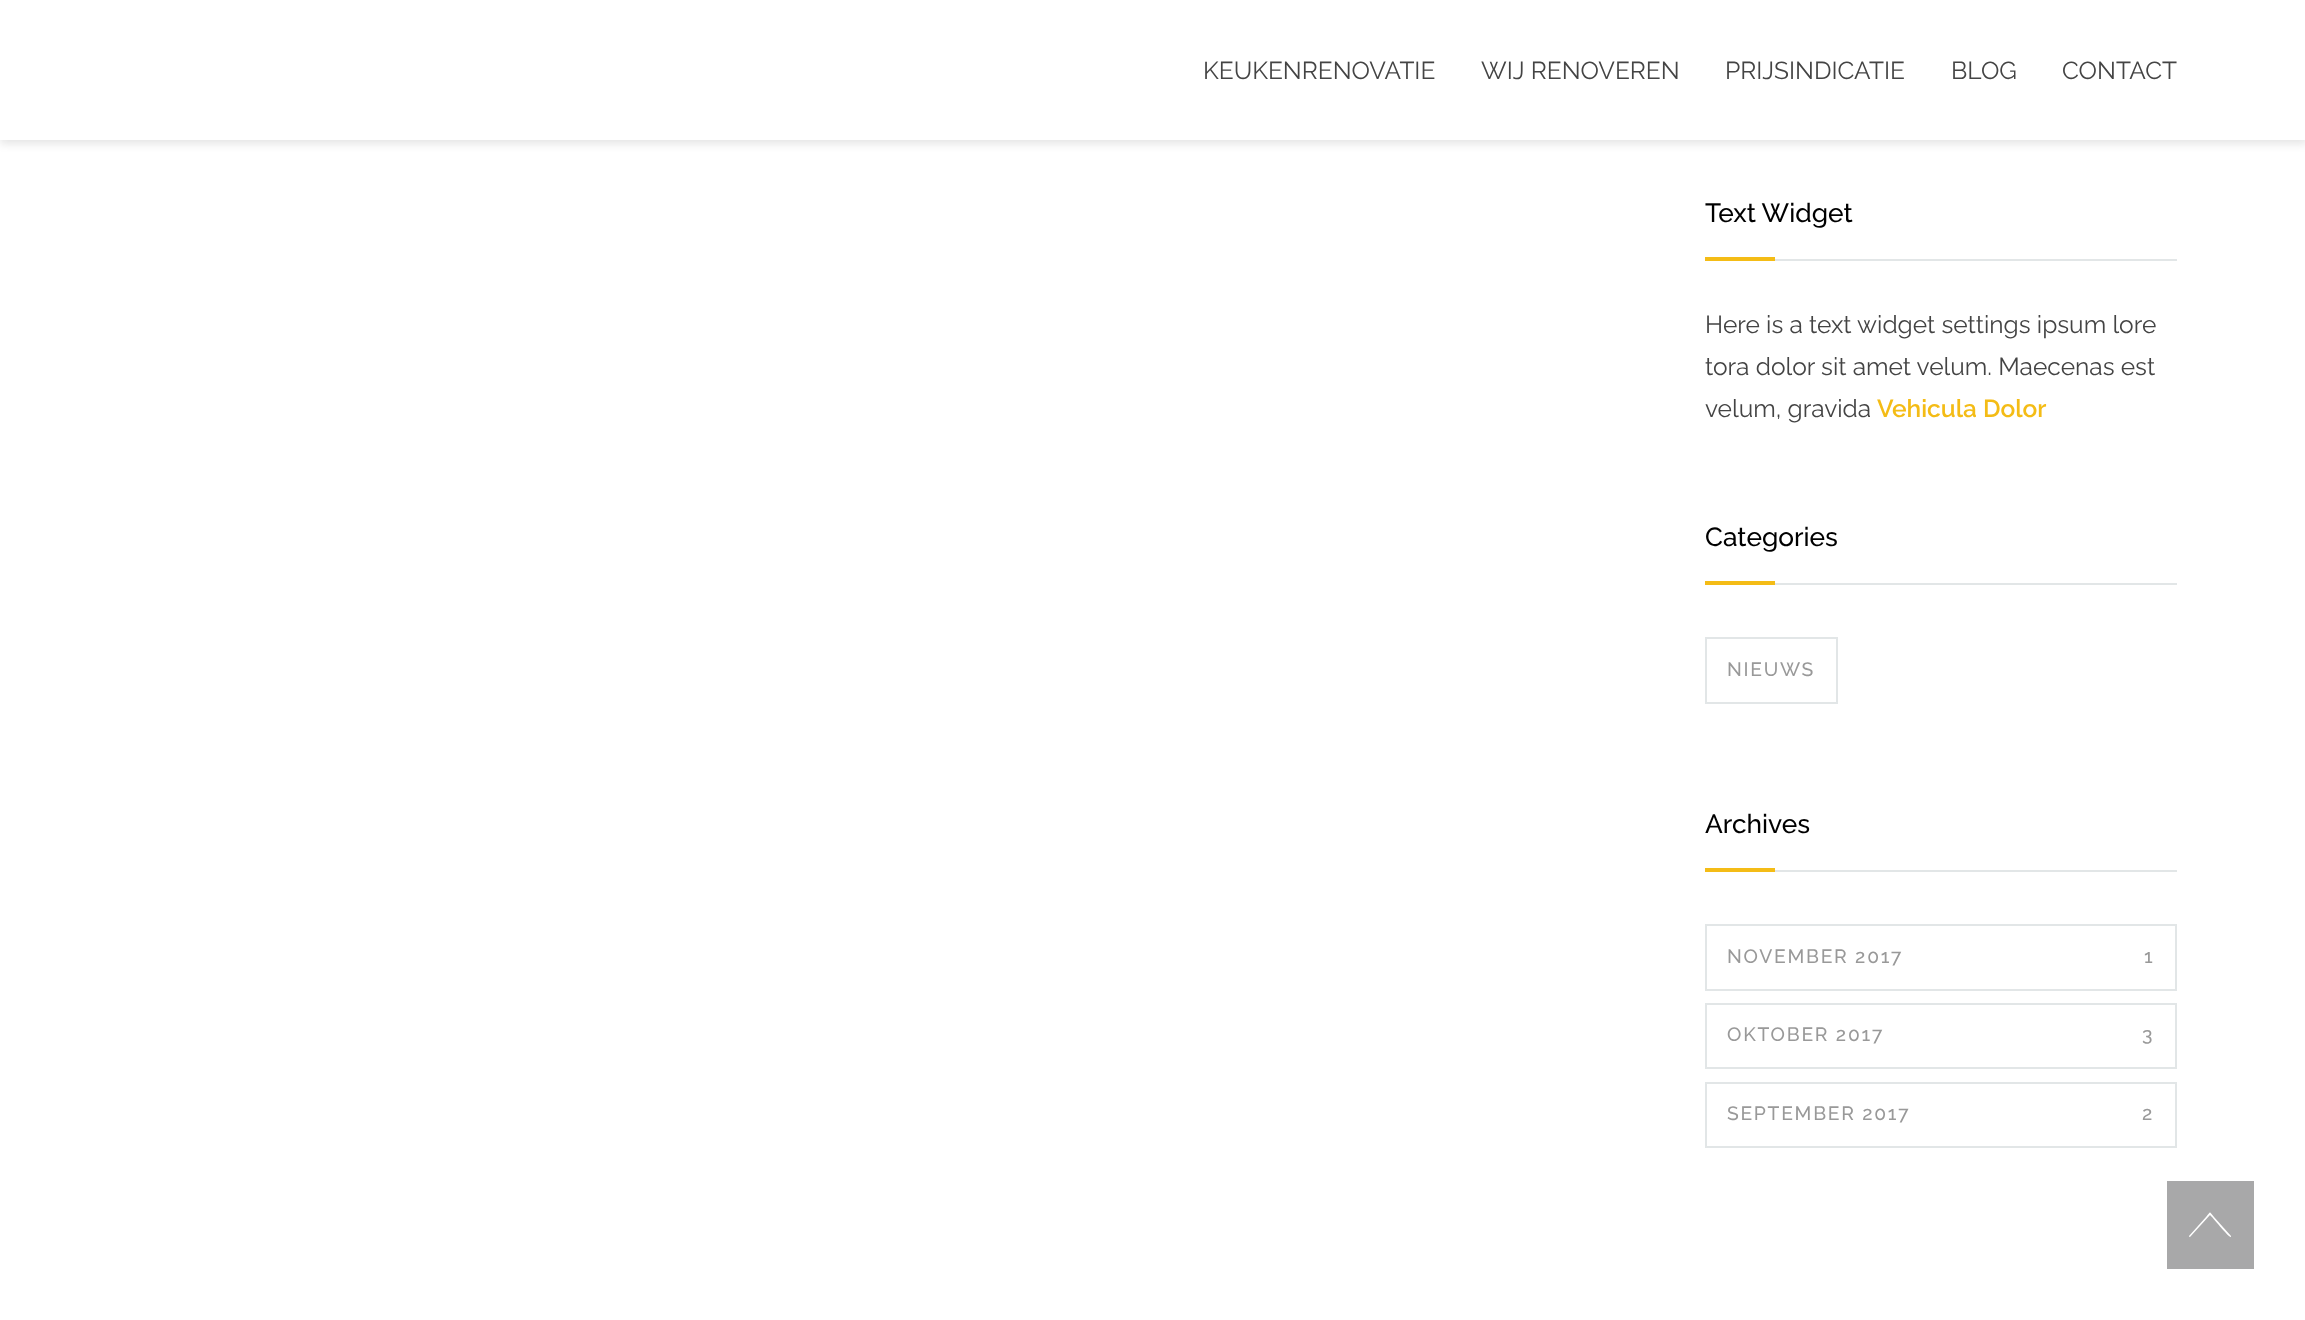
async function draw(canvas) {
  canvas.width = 2305;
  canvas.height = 1320;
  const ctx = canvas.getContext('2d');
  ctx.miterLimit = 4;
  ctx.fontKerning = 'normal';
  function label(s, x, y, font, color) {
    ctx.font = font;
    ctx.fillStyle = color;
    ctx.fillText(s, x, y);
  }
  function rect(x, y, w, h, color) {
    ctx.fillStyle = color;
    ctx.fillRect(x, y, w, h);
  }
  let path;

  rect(0, 0, 2305, 1320, '#fff');
  ctx.fillStyle = '#0000001a';
  ctx.filter = 'blur(4.5px)';
  ctx.beginPath();
  ctx.rect(0, 4, 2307, 140);
  ctx.fill();
  ctx.filter = 'none';
  rect(0, 0, 2305, 140, '#fff');
  label('KEUKENRENOVATIE', 1203, 79, '24.5px Raleway', '#444');
  label('WIJ RENOVEREN', 1481, 79, '24.5px Raleway', '#444');
  label('PRIJSINDICATIE', 1725, 79, '24.5px Raleway', '#444');
  label('BLOG', 1951, 79, '24.5px Raleway', '#444');
  label('CONTACT', 2062, 79, '24.5px Raleway', '#444');
  rect(1775, 259, 402, 2, '#e2e6e7');
  label('Text Widget', 1705, 222, '500 26.25px Raleway', '#000');
  rect(1705, 257, 70, 4, '#f4bc16');
  label('Here is a text widget settings ipsum lore', 1705, 333, '24.5px Raleway', '#444');
  label('tora dolor sit amet velum. Maecenas est', 1705, 375, '24.5px Raleway', '#444');
  label('velum, gravida', 1705, 417, '24.5px Raleway', '#444');
  label('Vehicula Dolor', 1877, 417, '600 24.5px Raleway', '#f4bc16');
  rect(1775, 583, 402, 2, '#e2e6e7');
  label('Categories', 1705, 546, '500 26.25px Raleway', '#000');
  rect(1705, 581, 70, 4, '#f4bc16');
  ctx.strokeStyle = '#e2e6e7';
  ctx.lineWidth = 2;
  ctx.strokeRect(1706, 638, 131, 65);
  ctx.letterSpacing = '1.75px';
  label('NIEUWS', 1727, 676, '500 19.25px Raleway', '#999');
  rect(1775, 870, 402, 2, '#e2e6e7');
  ctx.letterSpacing = '0px';
  label('Archives', 1705, 833, '500 26.25px Raleway', '#000');
  rect(1705, 868, 70, 4, '#f4bc16');
  ctx.strokeRect(1706, 925, 470, 65);
  ctx.letterSpacing = '1.75px';
  label('NOVEMBER 2017', 1727, 963, '500 19.25px Raleway', '#999');
  label('1', 2144, 963, '500 19.25px Raleway', '#999');
  ctx.strokeRect(1706, 1004, 470, 64);
  label('OKTOBER 2017', 1727, 1041, '500 19.25px Raleway', '#999');
  label('3', 2142, 1041, '500 19.25px Raleway', '#999');
  ctx.strokeRect(1706, 1083, 470, 64);
  label('SEPTEMBER 2017', 1727, 1120, '500 19.25px Raleway', '#999');
  label('2', 2142, 1120, '500 19.25px Raleway', '#999');
  rect(2167, 1181, 87, 88, '#a8a8a9');
  ctx.fillStyle = '#fff';
  path = new Path2D('M2231 1236C2231 1236 2231 1237 2231 1237C2229 1238 2216 1221 2210 1215L2190 1237C2190 1237 2189 1237 2189 1236L2206 1217C2211 1211 2209 1211 2214 1217Z');
  ctx.fill(path);
}

draw(document.querySelector('canvas'));
